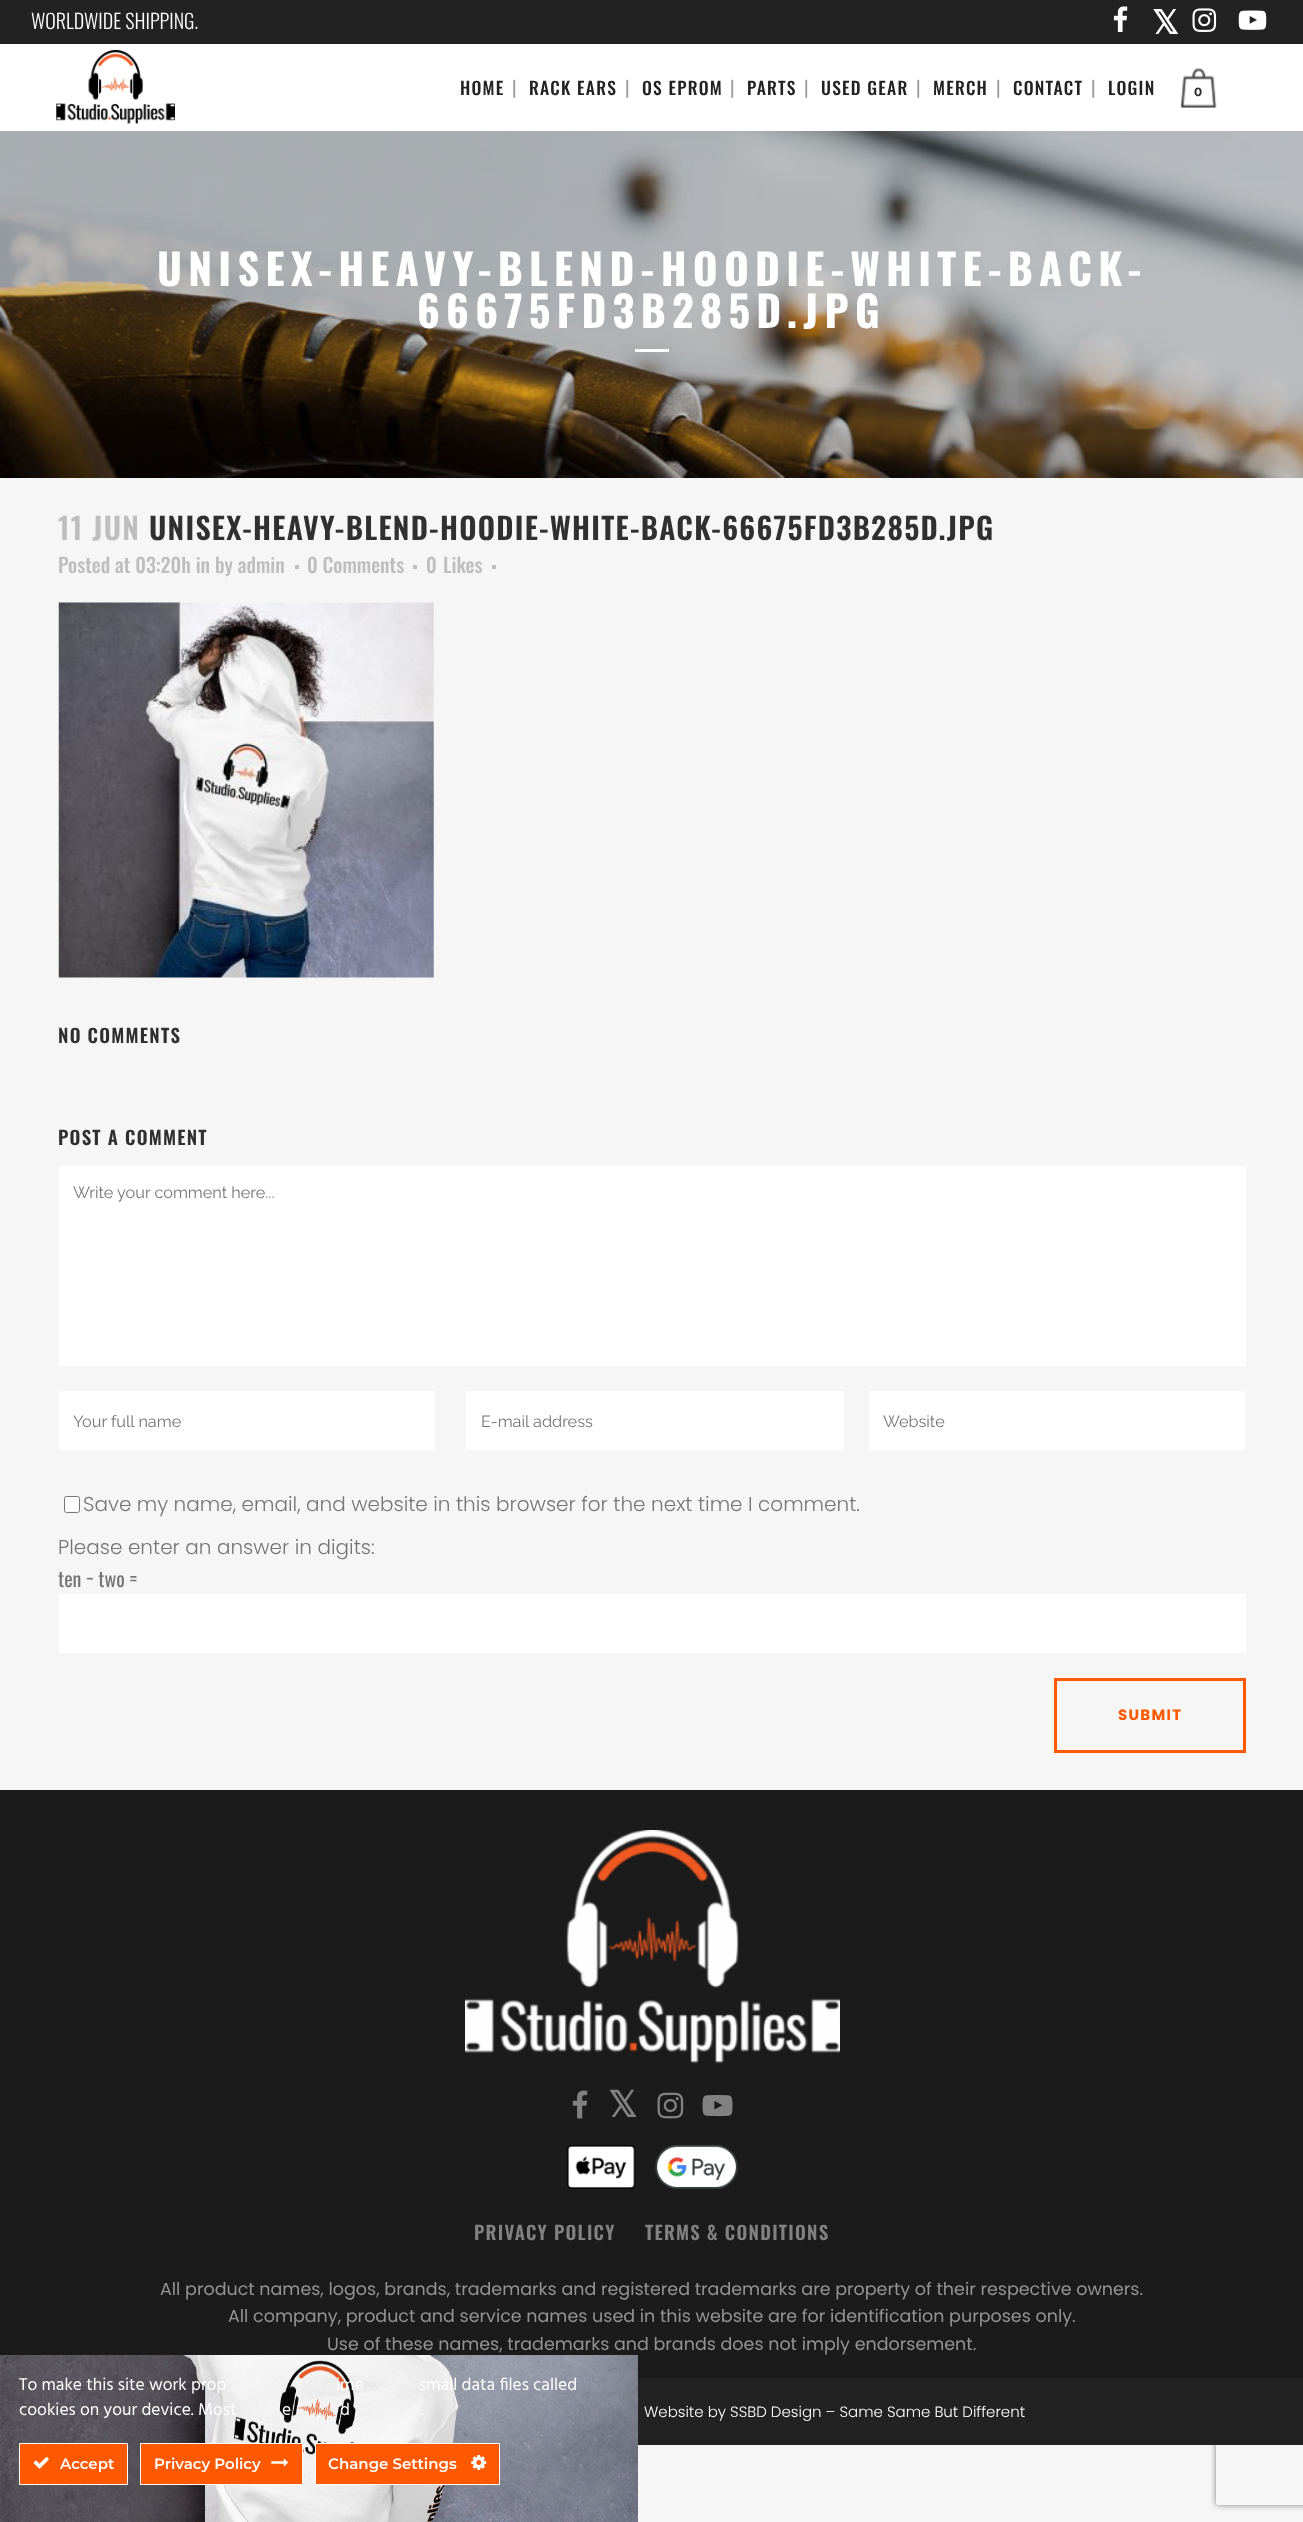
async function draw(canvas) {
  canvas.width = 1303;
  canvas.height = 2522;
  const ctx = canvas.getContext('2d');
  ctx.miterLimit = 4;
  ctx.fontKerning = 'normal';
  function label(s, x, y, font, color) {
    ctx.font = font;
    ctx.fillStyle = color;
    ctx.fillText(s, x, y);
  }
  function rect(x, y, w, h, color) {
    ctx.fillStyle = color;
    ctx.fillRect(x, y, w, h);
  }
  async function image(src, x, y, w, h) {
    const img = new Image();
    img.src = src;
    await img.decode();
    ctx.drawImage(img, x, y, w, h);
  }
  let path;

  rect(0, 0, 1303, 2522, '#f6f6f6');
  rect(0, 0, 1303, 44, '#222');
  label('WORLDWIDE SHIPPING.', 31, 29, '300 20px Oswald', '#fff');
  await image('assets/img1.png', 1113, 6, 15, 26);
  label('𝕏', 1152, 34, 'bold 33px DejaVu Sans', '#fff');
  await image('assets/img2.png', 1192, 8, 25, 24);
  await image('assets/img3.png', 1238, 10, 29, 20);
  rect(0, 44, 1303, 87, '#fff');
  await image('assets/img4.png', 56, 50, 119, 74);
  ctx.letterSpacing = '1.25px';
  label('HOME', 460, 95, '500 17.5px Oswald', '#222');
  ctx.letterSpacing = '0px';
  label('|', 512, 95, '18.75px Oswald', '#9e9e9e');
  ctx.letterSpacing = '1.25px';
  label('RACK EARS', 529, 95, '500 17.5px Oswald', '#222');
  ctx.letterSpacing = '0px';
  label('|', 625, 95, '18.75px Oswald', '#9e9e9e');
  ctx.letterSpacing = '1.25px';
  label('OS EPROM', 642, 95, '500 17.5px Oswald', '#222');
  ctx.letterSpacing = '0px';
  label('|', 730, 95, '18.75px Oswald', '#9e9e9e');
  ctx.letterSpacing = '1.25px';
  label('PARTS', 747, 95, '500 17.5px Oswald', '#222');
  ctx.letterSpacing = '0px';
  label('|', 804, 95, '18.75px Oswald', '#9e9e9e');
  ctx.letterSpacing = '1.25px';
  label('USED GEAR', 821, 95, '500 17.5px Oswald', '#222');
  ctx.letterSpacing = '0px';
  label('|', 916, 95, '18.75px Oswald', '#9e9e9e');
  ctx.letterSpacing = '1.25px';
  label('MERCH', 933, 95, '500 17.5px Oswald', '#222');
  ctx.letterSpacing = '0px';
  label('|', 996, 95, '18.75px Oswald', '#9e9e9e');
  ctx.letterSpacing = '1.25px';
  label('CONTACT', 1013, 95, '500 17.5px Oswald', '#222');
  ctx.letterSpacing = '0px';
  label('|', 1091, 95, '18.75px Oswald', '#9e9e9e');
  ctx.letterSpacing = '1.25px';
  label('LOGIN', 1108, 95, '500 17.5px Oswald', '#222');
  await image('assets/img5.png', 1181, 68, 36, 40);
  ctx.letterSpacing = '0px';
  label('0', 1194, 96, 'bold 12px Montserrat', '#303030');
  await image('assets/img6.png', 0, 131, 1303, 347);
  ctx.letterSpacing = '6.25px';
  label('UNISEX-HEAVY-BLEND-HOODIE-WHITE-BACK-', 157, 286, 'bold 42.5px Oswald', '#fff');
  label('66675FD3B285D.JPG', 417, 328, 'bold 42.5px Oswald', '#fff');
  rect(635, 349, 34, 3, '#fff');
  ctx.letterSpacing = '1.25px';
  label('11 JUN', 58, 540, '600 30px Oswald', '#bebebe');
  label('UNISEX-HEAVY-BLEND-HOODIE-WHITE-BACK-66675FD3B285D.JPG', 149, 540, '600 30px Oswald', '#303030');
  ctx.letterSpacing = '0px';
  label('Posted at 03:20h in by admin', 58, 573, '500 20px Oswald', '#bebebe');
  rect(295, 565, 4, 4, '#bebebe');
  label('0 Comments', 307, 573, '500 20px Oswald', '#bebebe');
  rect(413, 565, 4, 4, '#bebebe');
  label('0', 426, 573, '500 20px Oswald', '#bebebe');
  label('Likes', 443, 573, '500 20px Oswald', '#bebebe');
  rect(492, 565, 4, 4, '#bebebe');
  await image('assets/img7.png', 58, 602, 376, 376);
  ctx.letterSpacing = '1.25px';
  label('NO COMMENTS', 58, 1043, '600 18.75px Oswald', '#303030');
  label('POST A COMMENT', 58, 1145, '600 18.75px Oswald', '#303030');
  rect(59, 1166, 1187, 200, '#fff');
  ctx.letterSpacing = '0px';
  label('Write your comment here...', 73, 1198, '16.25px Raleway', '#757575');
  rect(59, 1391, 376, 59, '#fff');
  label('Your full name', 73, 1427, '16.25px Raleway', '#757575');
  rect(466, 1391, 378, 59, '#fff');
  label('E-mail address', 481, 1427, '16.25px Raleway', '#757575');
  rect(869, 1391, 376, 59, '#fff');
  label('Website', 883, 1427, '16.25px Raleway', '#757575');
  ctx.fillStyle = '#fff';
  ctx.beginPath();
  ctx.roundRect(64.5, 1496.5, 15, 16, 2);
  ctx.fill();
  ctx.strokeStyle = '#767676';
  ctx.stroke();
  label('Save my name, email, and website in this browser for the next time I comment.', 83, 1511, '300 20px Poppins', '#757575');
  label('Please enter an answer in digits:', 58, 1554, '300 20px Poppins', '#757575');
  label('ten − two =', 58, 1587, '20px Oswald', '#757575');
  rect(59, 1594, 1187, 59, '#fff');
  ctx.strokeStyle = '#ff5900';
  ctx.lineWidth = 3;
  ctx.strokeRect(1055.5, 1679.5, 189, 72);
  ctx.letterSpacing = '1.25px';
  label('SUBMIT', 1118, 1720, 'bold 15px Poppins', '#ff5900');
  rect(0, 1790, 1303, 588, '#1b1b1b');
  await image('assets/img8.png', 465, 1830, 375, 234);
  await image('assets/img9.png', 572, 2090, 16, 29);
  ctx.letterSpacing = '0px';
  label('𝕏', 608, 2117, 'bold 36px DejaVu Sans', '#818181');
  await image('assets/img10.png', 657, 2092, 27, 27);
  await image('assets/img11.png', 702, 2095, 31, 22);
  await image('assets/img12.png', 567, 2145, 171, 44);
  ctx.letterSpacing = '1.25px';
  label('PRIVACY POLICY', 474, 2240, '600 18.75px Oswald', '#818181');
  label('TERMS & CONDITIONS', 645, 2240, '600 18.75px Oswald', '#818181');
  ctx.letterSpacing = '0px';
  label('All product names, logos, brands, trademarks and registered trademarks are property of their respective owners.', 160, 2295, '17.5px Poppins', '#939393');
  label('All company, product and service names used in this website are for identification purposes only.', 228, 2322, '17.5px Poppins', '#939393');
  label('Use of these names, trademarks and brands does not imply endorsement.', 327, 2350, '17.5px Poppins', '#939393');
  ctx.save();
  path = new Path2D('M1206 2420H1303V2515H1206ZM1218.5 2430H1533.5C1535 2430 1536 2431 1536 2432.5V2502.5C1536 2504 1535 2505 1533.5 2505H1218.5C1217 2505 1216 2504 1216 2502.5V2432.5C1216 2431 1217 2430 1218.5 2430Z');
  ctx.clip(path, 'evenodd');
  ctx.fillStyle = '#808080';
  ctx.filter = 'blur(3px)';
  ctx.beginPath();
  ctx.roundRect(1216, 2430, 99, 75, 2.5);
  ctx.fill();
  ctx.filter = 'none';
  ctx.restore();
  rect(638, 2378, 665, 67, '#222');
  label('Website by SSBD Design – Same Same But Different', 644, 2417, '300 15px Poppins', '#fff');
  await image('assets/img13.png', 0, 2355, 638, 167);
  label('To make this site work prop', 19, 2390, '17.5px Hind', '#fff');
  label('ime', 336, 2390, '17.5px Hind', '#fff');
  label('small data files called', 419, 2390, '17.5px Hind', '#fff');
  label('cookies on your device. Most', 19, 2415, '17.5px Hind', '#fff');
  label('e', 282, 2415, '17.5px Hind', '#fff');
  label('d', 340, 2415, '17.5px Hind', '#fff');
  label('.', 421, 2415, '17.5px Hind', '#fff');
  ctx.fillStyle = '#ff5900';
  ctx.beginPath();
  ctx.rect(19.5, 2443.5, 108, 41);
  ctx.fill();
  ctx.strokeStyle = '#fff';
  ctx.lineWidth = 1;
  ctx.stroke();
  await image('assets/img14.png', 33, 2457, 16, 12);
  label('Accept', 60, 2469, '600 15px Montserrat', '#fff');
  ctx.fillStyle = '#ff5900';
  ctx.beginPath();
  ctx.rect(140.5, 2443.5, 162, 41);
  ctx.fill();
  ctx.stroke();
  label('Privacy Policy', 154, 2469, '600 15px Montserrat', '#fff');
  await image('assets/img15.png', 271, 2458, 18, 9);
  ctx.fillStyle = '#ff5900';
  ctx.beginPath();
  ctx.rect(315.5, 2443.5, 184, 41);
  ctx.fill();
  ctx.stroke();
  label('Change Settings', 328, 2469, '600 15px Montserrat', '#fff');
  await image('assets/img16.png', 471, 2455, 16, 15);
}

draw(document.querySelector('canvas'));
